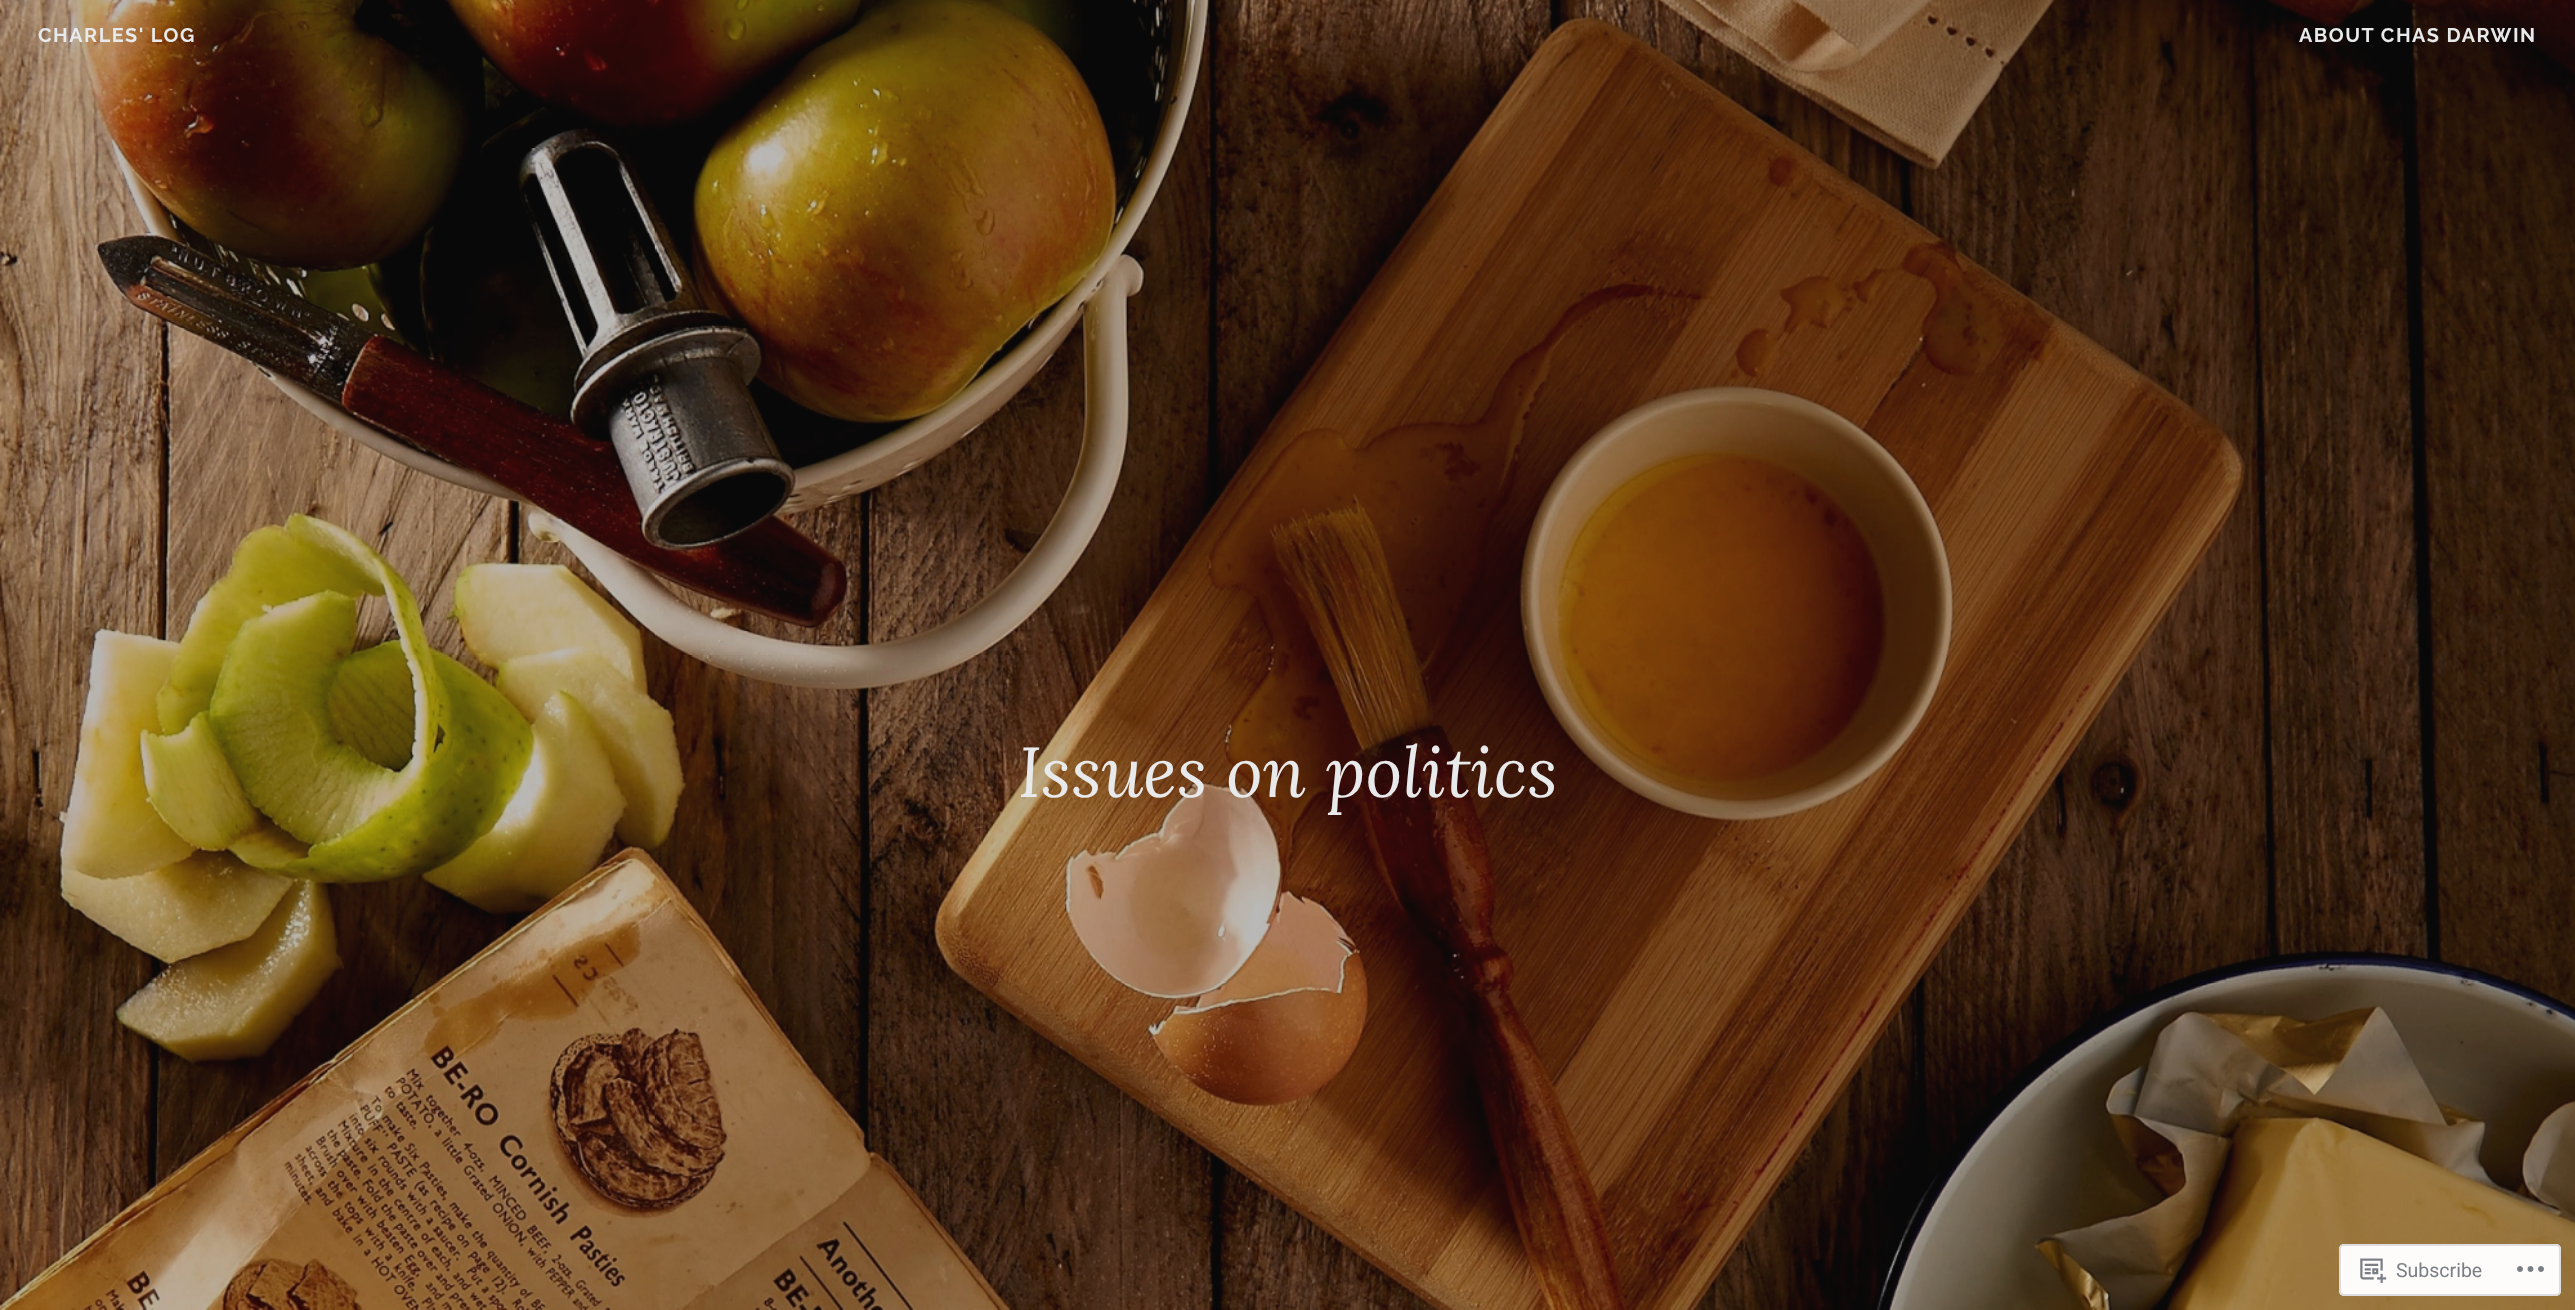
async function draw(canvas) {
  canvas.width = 2575;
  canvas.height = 1310;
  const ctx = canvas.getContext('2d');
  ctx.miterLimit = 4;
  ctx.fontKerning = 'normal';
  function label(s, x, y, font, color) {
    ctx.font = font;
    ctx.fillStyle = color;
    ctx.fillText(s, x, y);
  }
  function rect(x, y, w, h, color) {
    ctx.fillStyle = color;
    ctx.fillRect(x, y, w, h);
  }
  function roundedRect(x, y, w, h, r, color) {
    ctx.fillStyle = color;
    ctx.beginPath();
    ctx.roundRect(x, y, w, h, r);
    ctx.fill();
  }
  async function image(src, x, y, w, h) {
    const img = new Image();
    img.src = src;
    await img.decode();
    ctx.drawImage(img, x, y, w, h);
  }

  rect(0, 0, 2575, 1310, '#1e1c1b');
  await image('assets/img1.png', 0, 0, 2575, 1310);
  ctx.letterSpacing = '1.5px';
  label('CHARLES\' LOG', 38, 42, 'bold 19.75px Raleway', '#e8e9ea');
  label('ABOUT CHAS DARWIN', 2299, 42, 'bold 19.75px Raleway', '#e8e9ea');
  ctx.letterSpacing = '0px';
  label('Issues on politics', 1018, 797, 'italic 70.75px Lora', '#e8e9ea');
  roundedRect(2339, 1244, 222, 52, 5, '#fffffffa');
  ctx.beginPath();
  ctx.roundRect(2340, 1245, 220, 50, 4);
  ctx.strokeStyle = '#dcdcdefa';
  ctx.lineWidth = 2;
  ctx.stroke();
  await image('assets/img2.png', 2360, 1258, 27, 25);
  label('Subscribe', 2396, 1277, '19.5px Roboto', '#7b7f84');
  await image('assets/img3.png', 2517, 1266, 27, 6);
}

draw(document.querySelector('canvas'));
